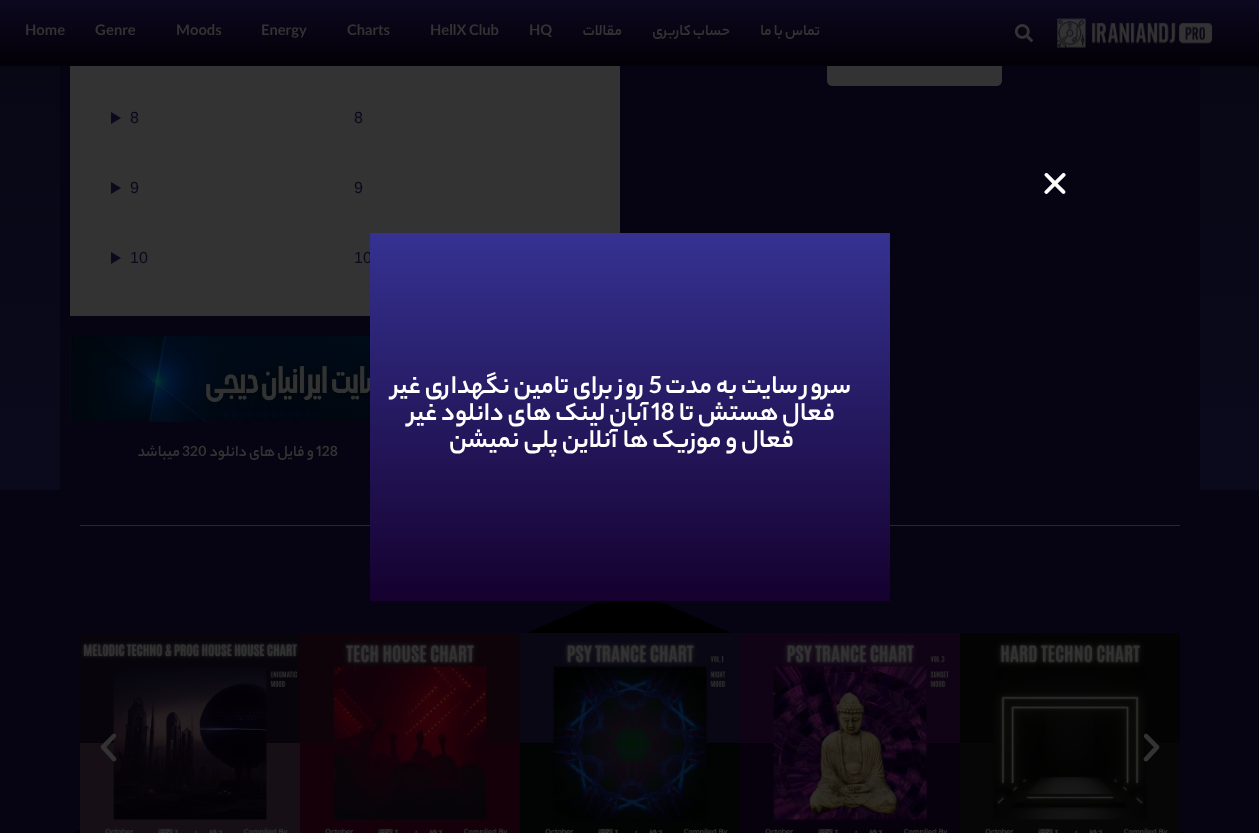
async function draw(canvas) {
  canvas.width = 1259;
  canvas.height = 833;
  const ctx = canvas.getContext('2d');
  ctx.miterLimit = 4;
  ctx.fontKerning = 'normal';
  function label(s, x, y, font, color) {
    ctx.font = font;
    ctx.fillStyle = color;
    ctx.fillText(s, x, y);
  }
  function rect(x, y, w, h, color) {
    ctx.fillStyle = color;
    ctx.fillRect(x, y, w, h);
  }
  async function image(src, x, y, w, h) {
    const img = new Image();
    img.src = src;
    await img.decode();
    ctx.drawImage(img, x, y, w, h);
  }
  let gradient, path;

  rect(0, 0, 1259, 833, '#fff');
  gradient = ctx.createLinearGradient(629, -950, 630, 490);
  gradient.addColorStop(0, '#000');
  gradient.addColorStop(1, '#0b0a1d');
  ctx.fillStyle = gradient;
  ctx.fillRect(0, 66, 1259, 424);
  rect(60, 66, 1140, 424, '#060412');
  ctx.fillStyle = '#333';
  ctx.beginPath();
  ctx.roundRect(825.5, 45.5, 178, 42, 6.5);
  ctx.fill();
  ctx.strokeStyle = '#060412';
  ctx.lineWidth = 3;
  ctx.stroke();
  gradient = ctx.createLinearGradient(630, 0, 630, 66);
  gradient.addColorStop(0, '#0c081f');
  gradient.addColorStop(1, '#030007');
  ctx.fillStyle = gradient;
  ctx.fillRect(0, 0, 1259, 66);
  await image('assets/img1.png', 1057, 18, 156, 30);
  await image('assets/img2.png', 1014, 24, 19, 19);
  ctx.direction = 'rtl';
  label('تماس با ما', 820, 35, 'bold 16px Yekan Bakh', '#333');
  label('حساب کاربری', 730, 35, 'bold 16px Yekan Bakh', '#333');
  label('مقالات', 622, 35, 'bold 16px Yekan Bakh', '#333');
  ctx.direction = 'ltr';
  label('HQ', 529, 35, 'bold 16px Yekan Bakh', '#333');
  label('HellX Club', 430, 35, 'bold 16px Yekan Bakh', '#333');
  label('Charts', 347, 35, 'bold 16px Yekan Bakh', '#333');
  label('Energy', 261, 35, 'bold 16px Yekan Bakh', '#333');
  label('Moods', 176, 35, 'bold 16px Yekan Bakh', '#333');
  label('Genre', 95, 35, 'bold 16px Yekan Bakh', '#333');
  label('Home', 25, 35, 'bold 16px Yekan Bakh', '#333');
  await image('assets/img3.png', 1044, 172, 22, 22);
  rect(70, 66, 550, 250, '#333');
  label('10', 354, 263, '16px Liberation Sans', '#0b0a1d');
  rect(0, 490, 1259, 343, '#060412');
  rect(80, 525, 1100, 1, '#28272b');
  ctx.fillStyle = '#000';
  path = new Path2D('M629 588L1259 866V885H-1V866Z');
  ctx.fill(path);
  gradient = ctx.createLinearGradient(630, 233, 630, 601);
  gradient.addColorStop(0, '#353292');
  gradient.addColorStop(1, '#15002e');
  ctx.fillStyle = gradient;
  ctx.fillRect(370, 233, 520, 368);
  ctx.direction = 'rtl';
  label('سرور سایت به مدت', 851, 393, 'bold 27px Yekan Bakh', '#fff');
  ctx.direction = 'ltr';
  label('5', 649, 393, 'bold 27px Yekan Bakh', '#fff');
  ctx.direction = 'rtl';
  label('روز برای تامین نگهداری غیر', 645, 393, 'bold 27px Yekan Bakh', '#fff');
  label('فعال هستش تا', 835, 420, 'bold 27px Yekan Bakh', '#fff');
  ctx.direction = 'ltr';
  label('18', 651, 420, 'bold 27px Yekan Bakh', '#fff');
  ctx.direction = 'rtl';
  label('آبان لینک های دانلود غیر', 648, 420, 'bold 27px Yekan Bakh', '#fff');
  label('فعال و موزیک ها آنلاین پلی نمیشن', 794, 447, 'bold 27px Yekan Bakh', '#fff');
  ctx.direction = 'ltr';
  label('8', 354, 123, '16px Liberation Sans', '#0b0a1d');
  label('8', 130, 123, '16px Liberation Sans', '#0b0a1d');
  path = new Path2D('M111 112L121 118L111 124Z');
  ctx.fill(path);
  label('9', 354, 193, '16px Liberation Sans', '#0b0a1d');
  label('9', 130, 193, '16px Liberation Sans', '#0b0a1d');
  path = new Path2D('M111 182L121 188L111 194Z');
  ctx.fill(path);
  label('10', 130, 263, '16px Liberation Sans', '#0b0a1d');
  path = new Path2D('M111 252L121 258L111 264Z');
  ctx.fill(path);
  await image('assets/img4.png', 70, 336, 300, 86);
  label('128', 316, 456, 'bold 16px Yekan Bakh', '#333');
  ctx.direction = 'rtl';
  label('و فایل های دانلود', 314, 456, 'bold 16px Yekan Bakh', '#333');
  ctx.direction = 'ltr';
  label('320', 182, 456, 'bold 16px Yekan Bakh', '#333');
  ctx.direction = 'rtl';
  label('میباشد', 180, 456, 'bold 16px Yekan Bakh', '#333');
  await image('assets/img5.png', 960, 633, 220, 200);
  await image('assets/img6.png', 740, 633, 220, 200);
  await image('assets/img7.png', 520, 633, 220, 200);
  await image('assets/img8.png', 300, 633, 220, 200);
  await image('assets/img9.png', 80, 633, 220, 200);
  await image('assets/img10.png', 1143, 733, 17, 29);
  await image('assets/img11.png', 100, 733, 17, 29);
}

draw(document.querySelector('canvas'));
